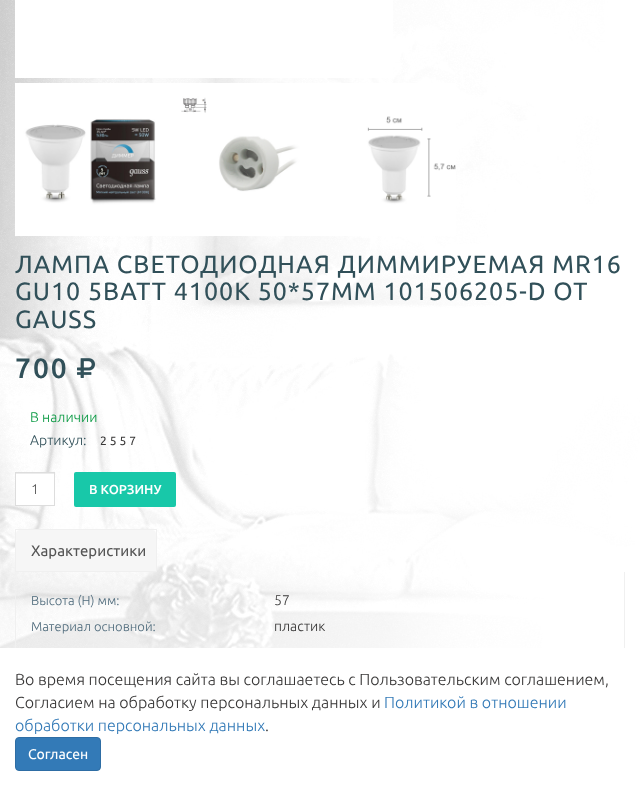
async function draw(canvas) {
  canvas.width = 640;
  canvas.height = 791;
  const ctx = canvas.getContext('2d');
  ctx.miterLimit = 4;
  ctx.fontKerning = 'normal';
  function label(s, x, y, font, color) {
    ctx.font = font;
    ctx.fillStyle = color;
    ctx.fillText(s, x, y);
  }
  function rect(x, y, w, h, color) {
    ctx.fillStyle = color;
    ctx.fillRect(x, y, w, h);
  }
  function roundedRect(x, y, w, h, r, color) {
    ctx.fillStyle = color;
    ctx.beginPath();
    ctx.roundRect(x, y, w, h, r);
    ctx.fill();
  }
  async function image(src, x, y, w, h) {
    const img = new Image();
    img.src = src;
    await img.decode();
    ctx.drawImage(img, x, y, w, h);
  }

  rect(0, 0, 640, 791, '#fff');
  await image('assets/img1.png', 0, 0, 640, 648);
  rect(15, 0, 378, 78, '#fff');
  await image('assets/img2.png', 15, 83, 153, 153);
  await image('assets/img3.png', 168, 83, 152, 153);
  await image('assets/img4.png', 320, 83, 136, 153);
  ctx.letterSpacing = '1px';
  label('ЛАМПА СВЕТОДИОДНАЯ ДИММИРУЕМАЯ MR16', 15, 273, '25px Ubuntu', '#315059');
  label('GU10 5ВАТТ 4100K 50*57ММ 101506205-D ОТ', 15, 300, '25px Ubuntu', '#315059');
  label('GAUSS', 15, 328, '25px Ubuntu', '#315059');
  ctx.letterSpacing = '2px';
  label('700', 15, 378, '500 28px Ubuntu', '#315059');
  await image('assets/img5.png', 77, 358, 18, 20);
  ctx.letterSpacing = '0px';
  label('В наличии', 30, 422, '300 14px Ubuntu', '#0c9b45');
  label('Артикул:', 30, 445, '300 14px Ubuntu', '#315059');
  ctx.letterSpacing = '3px';
  label('2557', 100, 445, '12px Ubuntu', '#383737');
  rect(16, 474, 38, 31, '#fff');
  rect(16, 473, 38, 1, '#ececec');
  ctx.strokeStyle = '#ddd';
  ctx.strokeRect(15.5, 472.5, 39, 33);
  ctx.letterSpacing = '0px';
  label('1', 31, 494, '300 14px Ubuntu', '#555');
  roundedRect(74, 472, 102, 35, 2, '#18c8a9');
  label('В КОРЗИНУ', 89, 494, '500 13px Ubuntu', '#fff');
  rect(16, 530, 140, 4, '#fff');
  ctx.strokeStyle = '#f0f0f0';
  ctx.strokeRect(15.5, 529.5, 141, 42);
  ctx.fillStyle = '#f6f6f6';
  ctx.beginPath();
  ctx.roundRect(16, 530, 140, 41, [4, 4, 0, 0]);
  ctx.fill();
  label('Характеристики', 31, 556, '15px Ubuntu', '#555');
  rect(624, 572, 1, 76, '#f0f0f0');
  rect(15, 591, 1, 57, '#f0f0f0');
  label('Выcота (H) мм:', 31, 605, '300 13px Ubuntu', '#4f6b7c');
  label('57', 274, 605, '300 14px Ubuntu', '#383737');
  label('Материал основной:', 31, 631, '300 13px Ubuntu', '#4f6b7c');
  label('пластик', 274, 631, '300 14px Ubuntu', '#383737');
  label('Во время посещения сайта вы соглашаетесь с Пользовательским соглашением,', 15, 685, '300 16px Ubuntu', '#383737');
  label('Согласием на обработку персональных данных и', 15, 708, '300 16px Ubuntu', '#383737');
  label('Политикой в отношении', 384, 708, '300 16px Ubuntu', '#337ab7');
  label('обработки персональных данных', 15, 731, '300 16px Ubuntu', '#337ab7');
  label('.', 265, 731, '300 16px Ubuntu', '#383737');
  ctx.fillStyle = '#337ab7';
  ctx.beginPath();
  ctx.roundRect(15.5, 737.5, 85, 33, 3.5);
  ctx.fill();
  ctx.strokeStyle = '#2e6da4';
  ctx.stroke();
  label('Согласен', 28, 759, '14px Ubuntu', '#fff');
}

draw(document.querySelector('canvas'));
